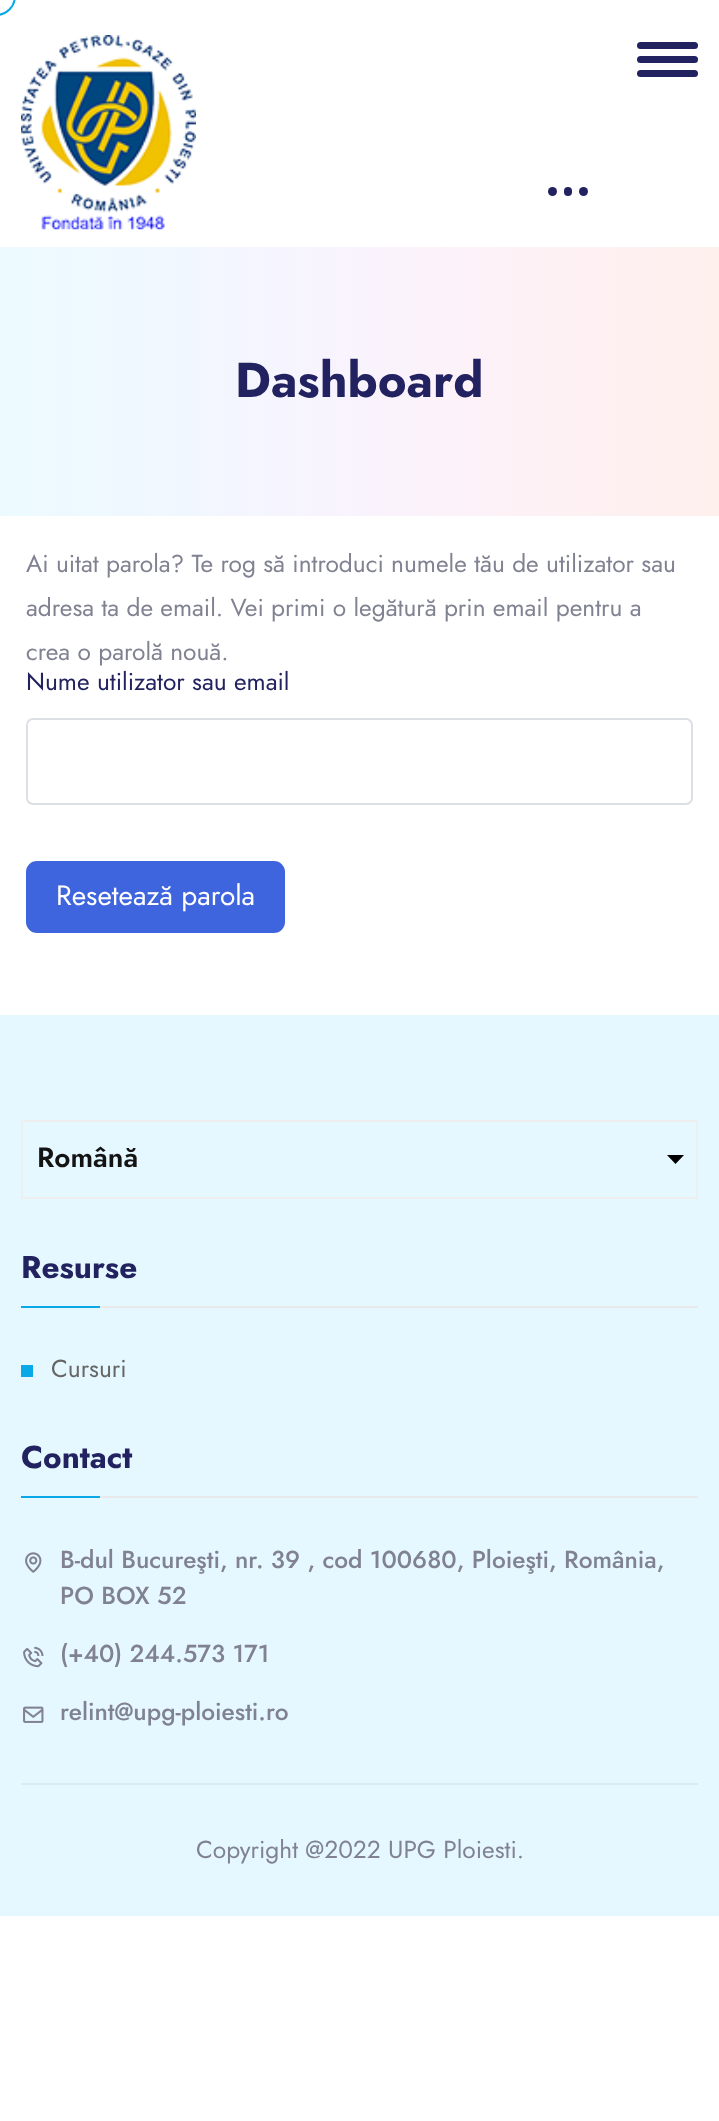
async function draw(canvas) {
  canvas.width = 719;
  canvas.height = 2121;
  const ctx = canvas.getContext('2d');
  ctx.miterLimit = 4;
  ctx.fontKerning = 'normal';
  function label(s, x, y, font, color) {
    ctx.font = font;
    ctx.fillStyle = color;
    ctx.fillText(s, x, y);
  }
  function rect(x, y, w, h, color) {
    ctx.fillStyle = color;
    ctx.fillRect(x, y, w, h);
  }
  function roundedRect(x, y, w, h, r, color) {
    ctx.fillStyle = color;
    ctx.beginPath();
    ctx.roundRect(x, y, w, h, r);
    ctx.fill();
  }
  async function image(src, x, y, w, h) {
    const img = new Image();
    img.src = src;
    await img.decode();
    ctx.drawImage(img, x, y, w, h);
  }
  let gradient, path;

  rect(0, 0, 719, 2121, '#fff');
  ctx.beginPath();
  ctx.roundRect(-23, -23, 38, 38, 21);
  ctx.strokeStyle = '#08a9e6';
  ctx.lineWidth = 2;
  ctx.stroke();
  await image('assets/img1.png', 21, 35, 175, 195);
  roundedRect(637, 42, 61, 7, 3.5, '#21225f');
  roundedRect(637, 56, 61, 7, 3.5, '#21225f');
  roundedRect(637, 70, 61, 7, 3.5, '#21225f');
  ctx.beginPath();
  ctx.arc(552.5, 191.5, 4.5, 0, 2 * Math.PI);
  ctx.fill();
  roundedRect(564, 187, 8, 9, 4, '#21225f');
  ctx.beginPath();
  ctx.arc(583.5, 191.5, 4.5, 0, 2 * Math.PI);
  ctx.fill();
  gradient = ctx.createLinearGradient(719, 382, 0, 382);
  gradient.addColorStop(0, '#fef0ed');
  gradient.addColorStop(0.25, '#fef1f5');
  gradient.addColorStop(0.5, '#f9f3fd');
  gradient.addColorStop(0.75, '#f1f7ff');
  gradient.addColorStop(1, '#ecfaff');
  ctx.fillStyle = gradient;
  ctx.fillRect(0, 247, 719, 269);
  label('Dashboard', 235, 397, 'bold 49px Jost', '#21225f');
  label('Ai uitat parola? Te rog să introduci numele tău de utilizator sau', 26, 572, '24.5px Jost', '#808292');
  label('adresa ta de email. Vei primi o legătură prin email pentru a', 26, 616, '24.5px Jost', '#808292');
  label('crea o parolă nouă.', 26, 660, '24.5px Jost', '#808292');
  label('Nume utilizator sau email', 26, 690, '24.5px Jost', '#21225f');
  ctx.beginPath();
  ctx.roundRect(27, 719, 665, 85, 6);
  ctx.strokeStyle = '#dcdfe5';
  ctx.stroke();
  ctx.fillStyle = '#3e64de';
  ctx.beginPath();
  ctx.roundRect(27, 862, 257, 70, 10);
  ctx.fill();
  ctx.strokeStyle = '#3e64de';
  ctx.stroke();
  label('Resetează parola', 56, 905, '28px Jost', '#fff');
  rect(0, 1015, 719, 901, '#e6f8ff');
  ctx.fillStyle = '#000';
  path = new Path2D('M667 1155L675.5 1164L684 1155Z');
  ctx.fill(path);
  ctx.strokeStyle = '#eee';
  ctx.strokeRect(22, 1121, 675, 77);
  label('Română', 37, 1167, '600 28px Jost', '#141414');
  rect(100, 1306, 598, 2, '#e7e9ea');
  label('Resurse', 21, 1278, 'bold 31.5px Jost', '#21225f');
  rect(21, 1306, 79, 2, '#08a9e6');
  rect(21, 1365, 12, 12, '#08a9e6');
  label('Cursuri', 51, 1377, '24.5px Jost', '#666');
  rect(100, 1496, 598, 2, '#e7e9ea');
  label('Contact', 21, 1468, 'bold 31.5px Jost', '#21225f');
  rect(21, 1496, 79, 2, '#08a9e6');
  await image('assets/img2.png', 25, 1552, 17, 21);
  label('B-dul Bucureşti, nr. 39 , cod 100680, Ploieşti, România,', 60, 1568, '500 24.5px Jost', '#808292');
  label('PO BOX 52', 60, 1604, '500 24.5px Jost', '#808292');
  await image('assets/img3.png', 23, 1646, 21, 22);
  label('(+40) 244.573 171', 60, 1662, '500 24.5px Jost', '#808292');
  await image('assets/img4.png', 23, 1706, 21, 17);
  label('relint@upg-ploiesti.ro', 60, 1720, '500 24.5px Jost', '#808292');
  rect(21, 1783, 677, 2, '#daeaf1');
  label('Copyright @2022 UPG Ploiesti.', 196, 1858, '24.5px Jost', '#808292');
}

draw(document.querySelector('canvas'));
